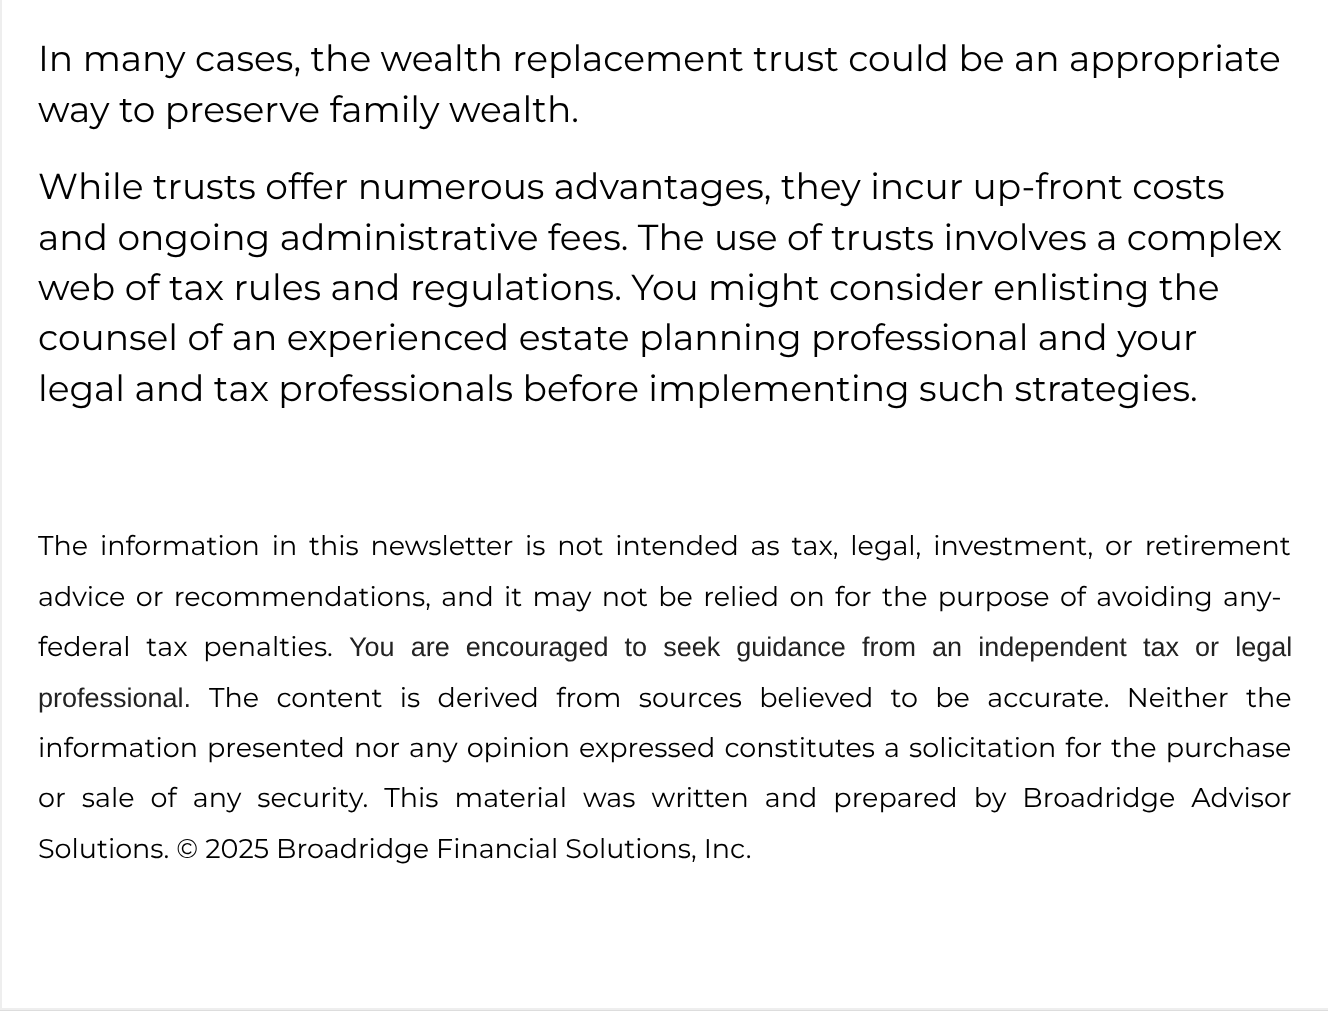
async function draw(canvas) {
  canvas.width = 1328;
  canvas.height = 1011;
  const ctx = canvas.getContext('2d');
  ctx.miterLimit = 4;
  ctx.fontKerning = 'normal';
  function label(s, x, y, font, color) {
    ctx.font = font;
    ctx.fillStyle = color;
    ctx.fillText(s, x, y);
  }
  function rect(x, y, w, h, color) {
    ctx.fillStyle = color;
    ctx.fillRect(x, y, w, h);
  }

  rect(0, 0, 1328, 1011, '#fff');
  ctx.strokeStyle = '#eee';
  ctx.lineWidth = 2;
  ctx.strokeRect(1, -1, 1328, 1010);
  label('In many cases, the wealth replacement trust could be an appropriate', 38, 71, '36px Montserrat', '#000');
  label('way to preserve family wealth.', 38, 122, '36px Montserrat', '#000');
  label('While trusts offer numerous advantages, they incur up-front costs', 38, 199, '36px Montserrat', '#000');
  label('and ongoing administrative fees. The use of trusts involves a complex', 38, 250, '36px Montserrat', '#000');
  label('web of tax rules and regulations. You might consider enlisting the', 38, 300, '36px Montserrat', '#000');
  label('counsel of an experienced estate planning professional and your', 38, 350, '36px Montserrat', '#000');
  label('legal and tax professionals before implementing such strategies.', 38, 401, '36px Montserrat', '#000');
  ctx.wordSpacing = '4.75px';
  label('The information in this newsletter is not intended as tax, legal, investment, or retirement', 38, 555, '27px Montserrat', '#000');
  ctx.wordSpacing = '3.25px';
  label('advice or recommendations, and it may not be relied on for the purpose of avoiding any-', 38, 606, '27px Montserrat', '#000');
  ctx.wordSpacing = '8.6px';
  label('federal tax penalties.', 38, 656, '27px Montserrat', '#000');
  label('You are encouraged to seek guidance from an independent tax or legal', 349, 656, '27px Liberation Sans', '#222');
  ctx.wordSpacing = '0px';
  label('professional.', 38, 707, '27px Liberation Sans', '#222');
  ctx.wordSpacing = '10.25px';
  label('The content is derived from sources believed to be accurate. Neither the', 209, 707, '27px Montserrat', '#000');
  ctx.wordSpacing = '2px';
  label('information presented nor any opinion expressed constitutes a solicitation for the purchase', 38, 757, '27px Montserrat', '#000');
  ctx.wordSpacing = '9px';
  label('or sale of any security. This material was written and prepared by Broadridge Advisor', 38, 807, '27px Montserrat', '#000');
  ctx.wordSpacing = '0px';
  label('Solutions. © 2025 Broadridge Financial Solutions, Inc.', 38, 858, '27px Montserrat', '#000');
  rect(0, 1010, 1328, 1, '#ddd');
}

draw(document.querySelector('canvas'));
